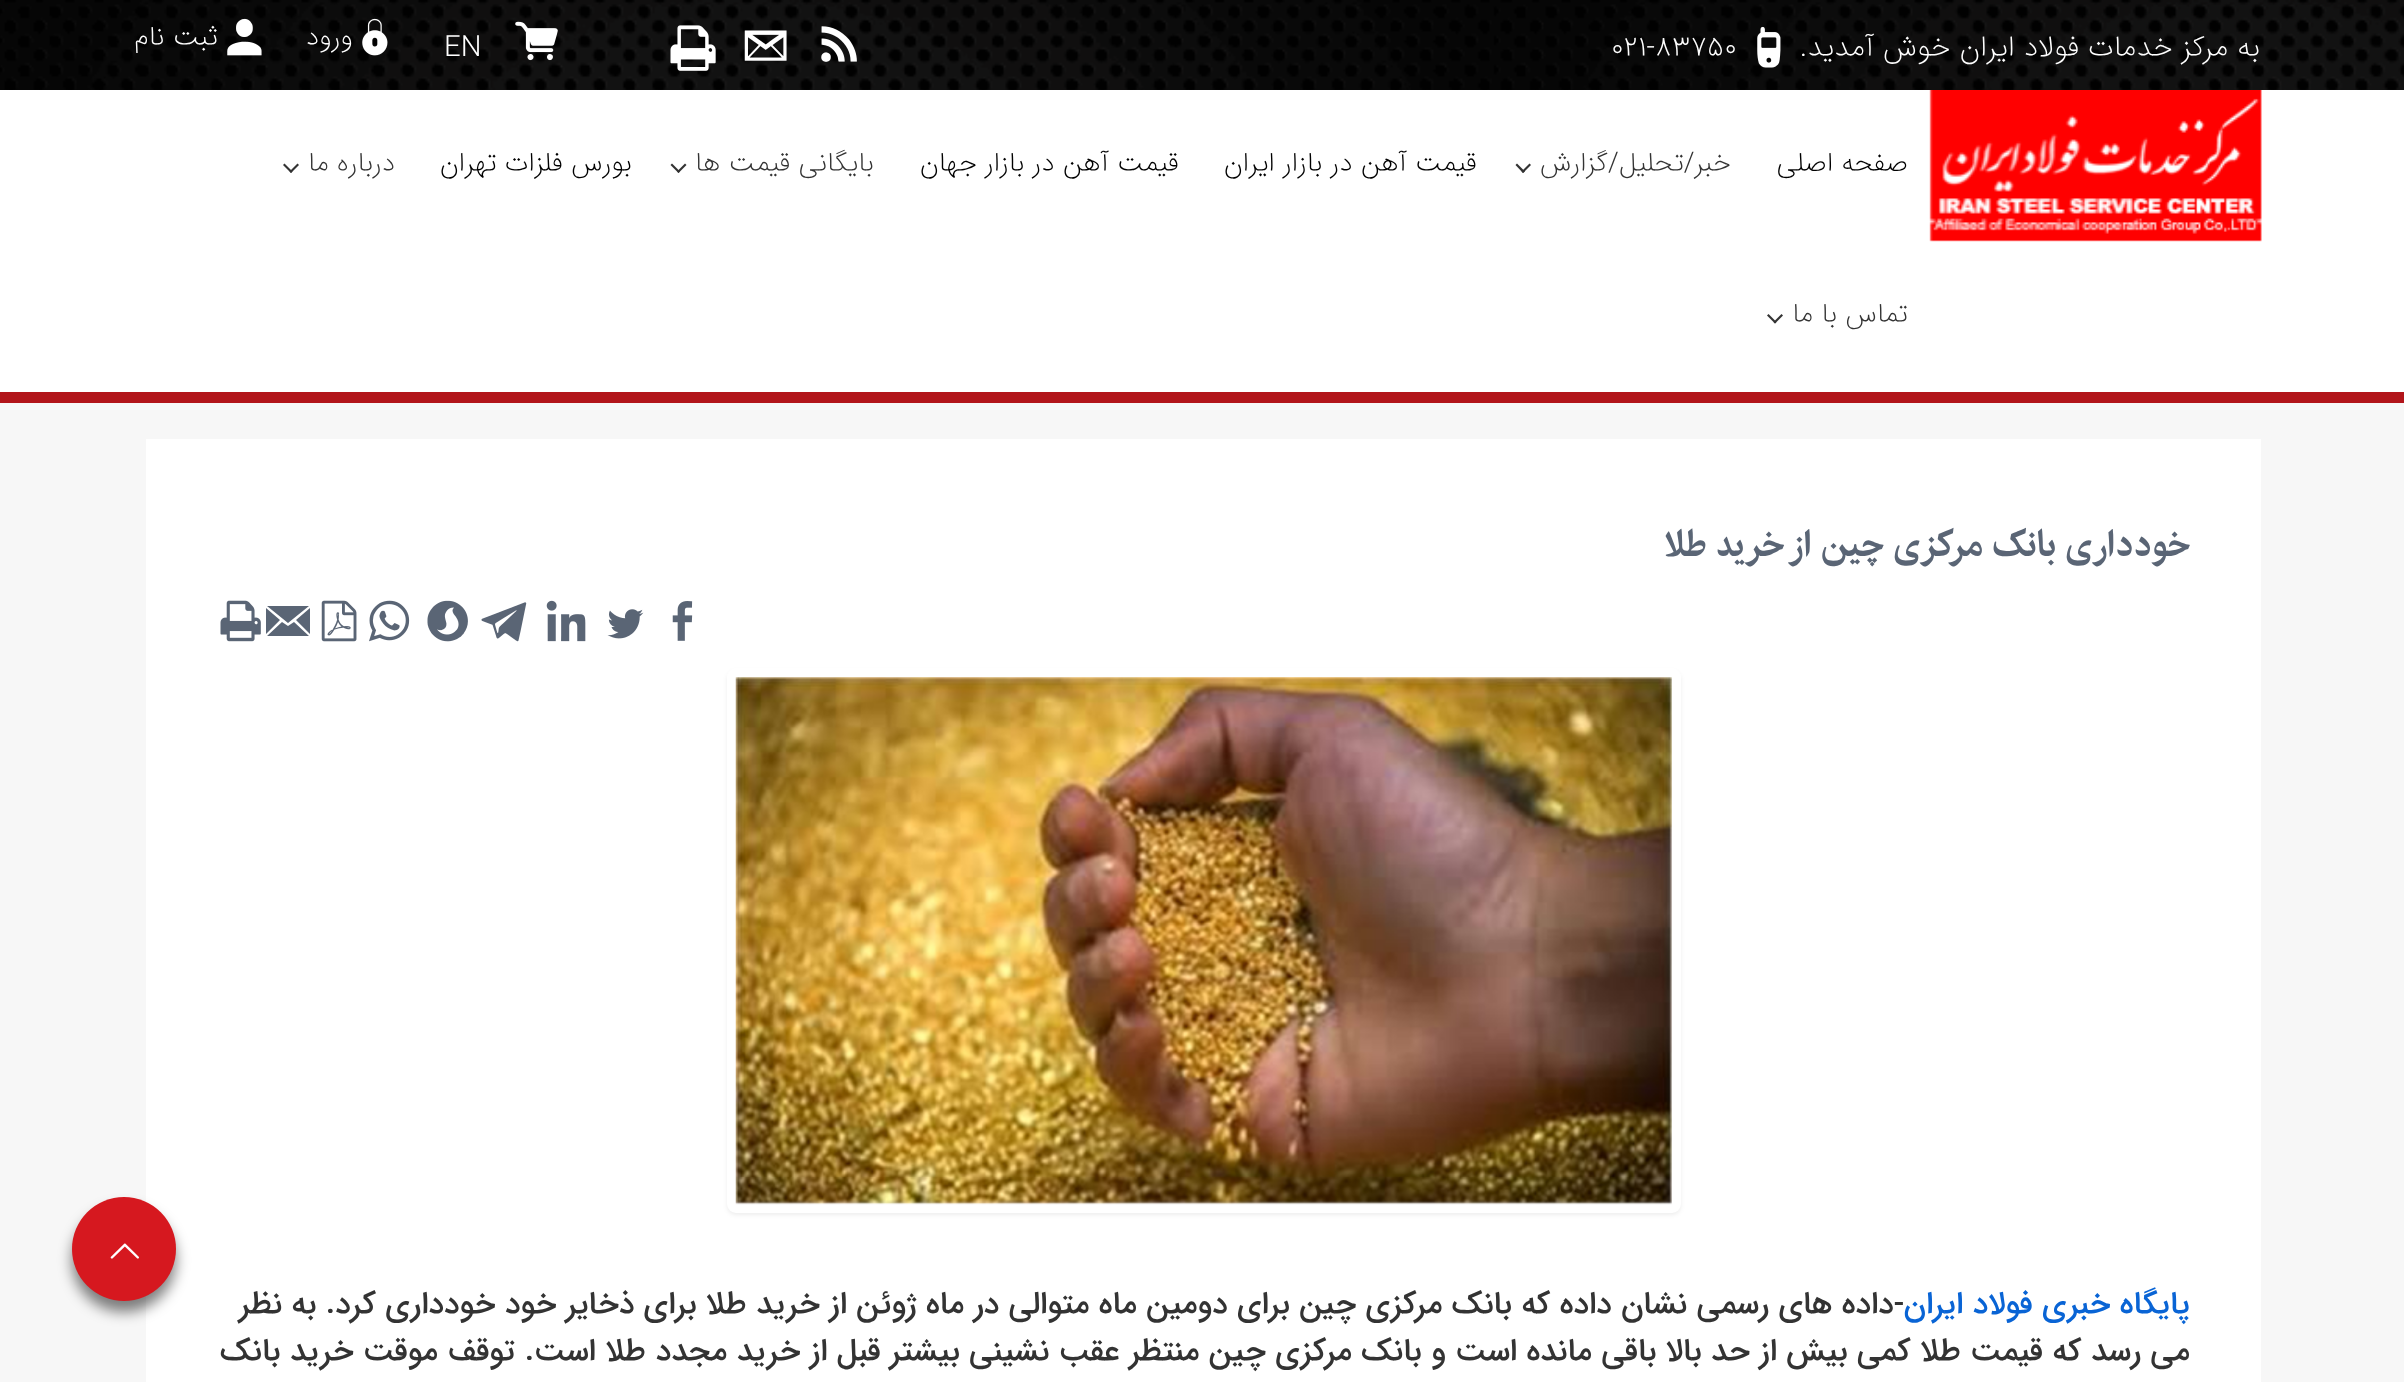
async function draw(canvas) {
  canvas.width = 2404;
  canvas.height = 1382;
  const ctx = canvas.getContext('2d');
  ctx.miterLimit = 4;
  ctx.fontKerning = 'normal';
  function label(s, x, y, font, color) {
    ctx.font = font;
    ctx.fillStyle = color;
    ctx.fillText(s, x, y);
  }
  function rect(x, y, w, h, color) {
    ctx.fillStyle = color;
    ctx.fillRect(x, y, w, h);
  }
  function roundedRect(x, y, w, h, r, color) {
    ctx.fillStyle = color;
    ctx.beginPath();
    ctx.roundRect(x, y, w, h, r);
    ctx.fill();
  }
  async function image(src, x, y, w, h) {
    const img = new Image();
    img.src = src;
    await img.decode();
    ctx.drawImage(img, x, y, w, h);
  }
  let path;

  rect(0, 0, 2404, 1382, '#f7f7f7');
  rect(0, 0, 2404, 90, '#000');
  await image('assets/img1.png', 0, 0, 2404, 90);
  ctx.direction = 'rtl';
  label('به مرکز خدمات فولاد ایران خوش آمدید.', 2260, 56, '200 29.25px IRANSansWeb', '#fff');
  await image('assets/img2.png', 1757, 26, 24, 42);
  ctx.direction = 'ltr';
  label('۰۲۱-۸۳۷۵۰', 1611, 56, '200 29.25px IRANSansWeb', '#fff');
  await image('assets/img3.png', 821, 26, 36, 36);
  await image('assets/img4.png', 744, 30, 43, 31);
  await image('assets/img5.png', 670, 25, 46, 46);
  await image('assets/img6.png', 515, 21, 43, 40);
  label('EN', 444, 56, '200 29.25px IRANSansWeb', '#fff');
  await image('assets/img7.png', 362, 18, 26, 38);
  ctx.direction = 'rtl';
  label('ورود', 353, 45, '200 27px IRANSansWeb', '#fff');
  await image('assets/img8.png', 227, 18, 35, 38);
  label('ثبت نام', 218, 45, '200 27px IRANSansWeb', '#fff');
  rect(0, 90, 2404, 302, '#fff');
  rect(0, 392, 2404, 11, '#b2151a');
  await image('assets/img9.png', 1929, 90, 333, 152);
  label('صفحه اصلی', 1908, 171, '200 27px IRANSansWeb', '#000');
  label('خبر/تحلیل/گزارش', 1731, 171, '200 27px IRANSansWeb', '#333');
  path = new Path2D('M1529.5 163.5L1531 165L1523 173L1521.5 171.5Z');
  ctx.fill(path);
  path = new Path2D('M1517 163.5L1525 171.5L1523 173L1515.5 165Z');
  ctx.fill(path);
  label('قیمت آهن در بازار ایران', 1477, 171, '200 27px IRANSansWeb', '#000');
  label('قیمت آهن در بازار جهان', 1179, 171, '200 27px IRANSansWeb', '#000');
  label('بایگانی قیمت ها', 874, 171, '200 27px IRANSansWeb', '#333');
  path = new Path2D('M685 163.5L686.5 165L678.5 173L677 171.5Z');
  ctx.fill(path);
  path = new Path2D('M672 163.5L680 171.5L678.5 173L670.5 165Z');
  ctx.fill(path);
  label('بورس فلزات تهران', 632, 171, '200 27px IRANSansWeb', '#000');
  label('درباره ما', 395, 171, '200 27px IRANSansWeb', '#333');
  path = new Path2D('M297.5 163.5L299 165L291 173L289.5 171.5Z');
  ctx.fill(path);
  path = new Path2D('M284.5 163.5L292.5 171.5L291 173L283 165Z');
  ctx.fill(path);
  label('تماس با ما', 1908, 322, '200 27px IRANSansWeb', '#333');
  path = new Path2D('M1781.5 314L1783 315.5L1775 323.5L1773.5 322Z');
  ctx.fill(path);
  path = new Path2D('M1768.5 314L1776.5 322L1775 323.5L1767 315.5Z');
  ctx.fill(path);
  rect(146, 439, 2115, 943, '#fff');
  label('خودداری بانک مرکزی چین از خرید طلا', 2190, 556, 'bold 36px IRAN', '#5a6575');
  await image('assets/img10.png', 672, 601, 21, 40);
  await image('assets/img11.png', 607, 609, 37, 30);
  await image('assets/img12.png', 546, 600, 40, 42);
  await image('assets/img13.png', 481, 602, 46, 40);
  await image('assets/img14.png', 427, 600, 41, 42);
  await image('assets/img15.png', 369, 600, 41, 42);
  await image('assets/img16.png', 321, 600, 36, 42);
  path = new Path2D('M267 606H309L288 623ZM282 622L288 626L294 622L309 636H267ZM266 608L280 620L266 634ZM296 620L310 608V634Z');
  ctx.fill(path);
  await image('assets/img17.png', 220, 600, 41, 42);
  ctx.fillStyle = '#00000012';
  ctx.filter = 'blur(2px)';
  ctx.beginPath();
  ctx.roundRect(727, 671, 954, 544, 9);
  ctx.fill();
  ctx.filter = 'none';
  roundedRect(727, 668, 954, 545, 9, '#fff');
  await image('assets/img18.png', 735, 677, 937, 528);
  label('پایگاه خبری فولاد ایران', 2190, 1313, '500 31.5px IRANSansWeb', '#0964d5');
  label('-داده های رسمی نشان داده که بانک مرکزی چین برای دومین ماه متوالی در ماه ژوئن از خرید طلا برای ذخایر خود خودداری کرد. به نظر', 1904, 1313, '500 31.5px IRANSansWeb', '#333');
  label('می رسد که قیمت طلا کمی بیش از حد بالا باقی مانده است و بانک مرکزی چین منتظر عقب نشینی بیشتر قبل از خرید مجدد طلا است. توقف موقت خرید بانک', 2190, 1360, '500 31.5px IRANSansWeb', '#333');
  ctx.fillStyle = '#00000080';
  ctx.filter = 'blur(7px)';
  ctx.beginPath();
  ctx.roundRect(72, 1208, 104, 104, 52);
  ctx.fill();
  ctx.filter = 'none';
  ctx.fillStyle = '#d6181f';
  ctx.beginPath();
  ctx.arc(124, 1249, 52, 0, 2 * Math.PI);
  ctx.fill();
  await image('assets/img19.png', 110, 1243, 29, 16);
}

draw(document.querySelector('canvas'));
